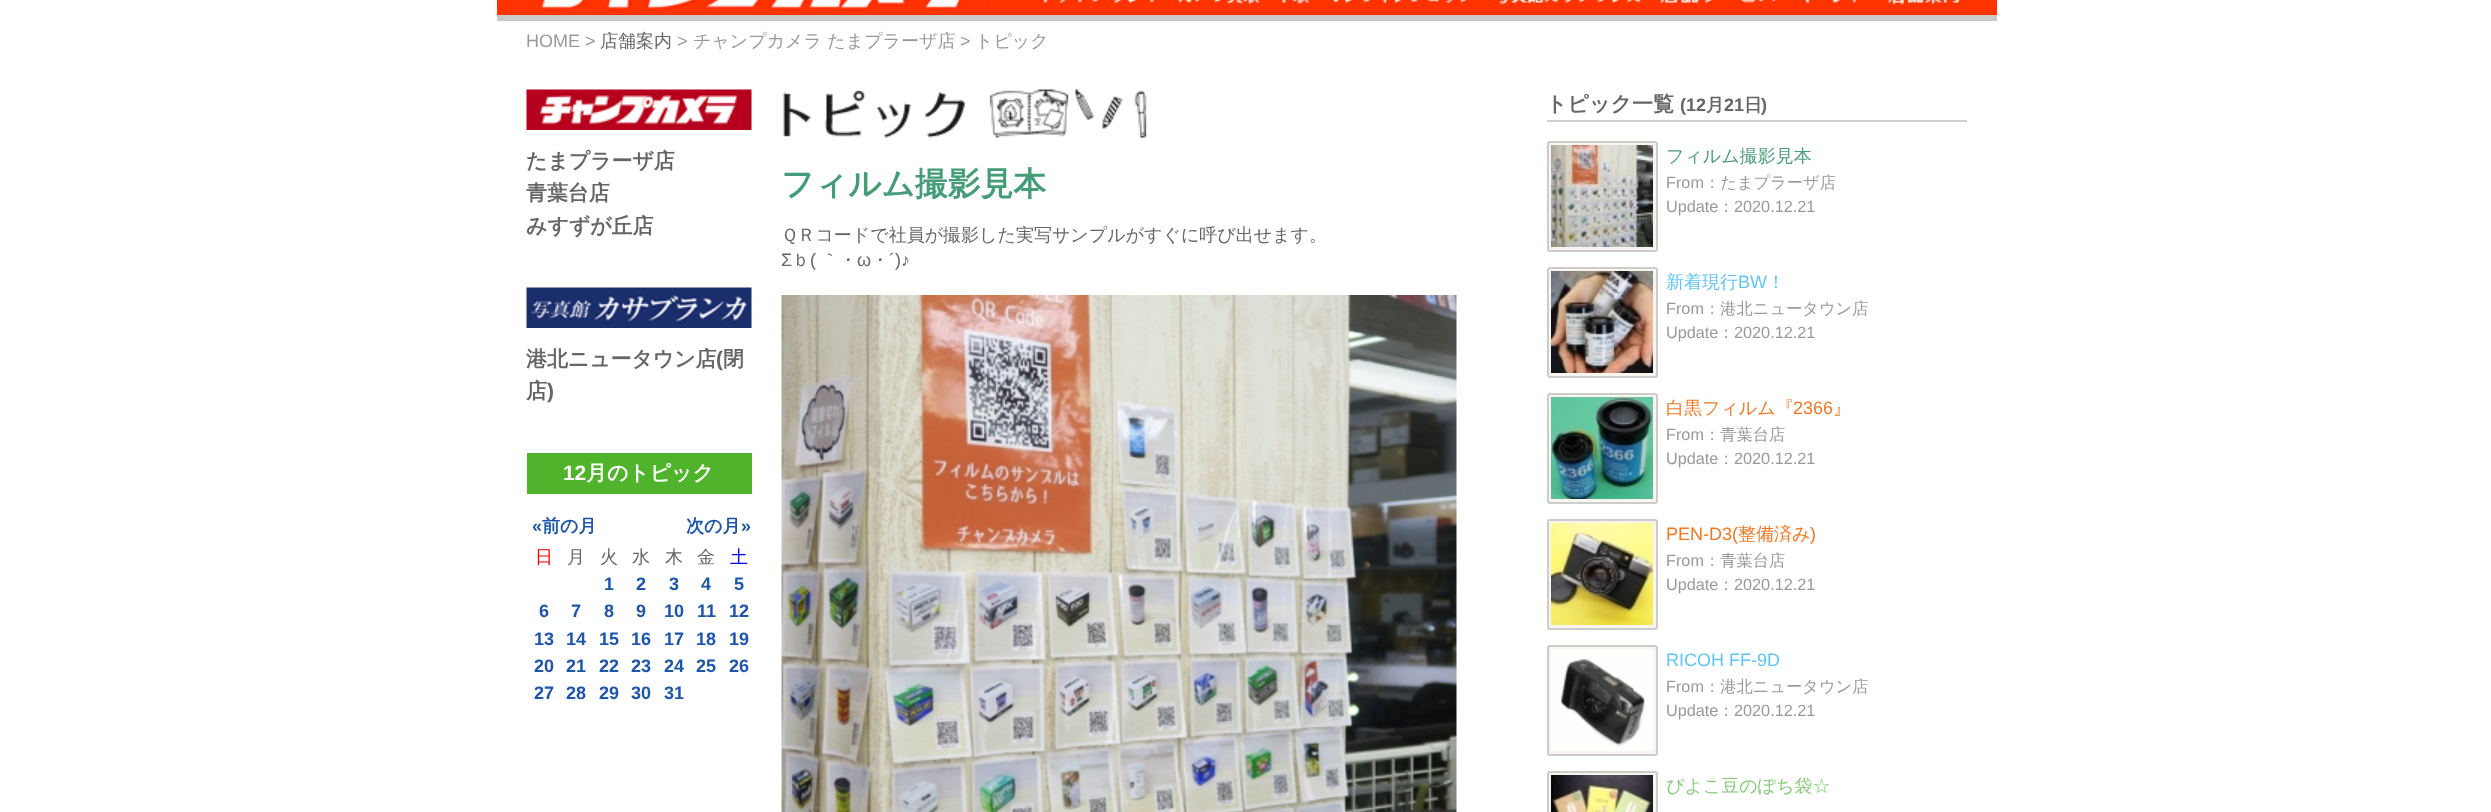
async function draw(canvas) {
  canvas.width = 2491;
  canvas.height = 812;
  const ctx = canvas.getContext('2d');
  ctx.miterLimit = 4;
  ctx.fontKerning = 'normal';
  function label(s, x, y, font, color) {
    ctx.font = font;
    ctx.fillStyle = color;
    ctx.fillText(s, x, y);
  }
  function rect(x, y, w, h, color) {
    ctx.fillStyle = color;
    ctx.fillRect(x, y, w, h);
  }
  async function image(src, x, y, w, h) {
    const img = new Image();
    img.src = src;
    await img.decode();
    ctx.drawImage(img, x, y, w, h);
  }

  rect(0, 0, 2491, 812, '#fff');
  rect(497, 0, 1500, 15, '#f30');
  rect(497, 15, 1500, 6, '#c9c9c9');
  await image('assets/img1.png', 527, 0, 465, 12);
  await image('assets/img2.png', 1043, 0, 111, 3);
  await image('assets/img3.png', 1177, 0, 133, 5);
  await image('assets/img4.png', 1327, 0, 139, 3);
  await image('assets/img5.png', 1499, 0, 143, 5);
  await image('assets/img6.png', 1660, 0, 117, 3);
  await image('assets/img7.png', 1805, 0, 51, 3);
  await image('assets/img8.png', 1888, 0, 72, 5);
  label('HOME >', 526, 47, '18px Liberation Sans', '#999');
  label('店舗案内', 600, 47, '500 18px WenQuanYi Zen Hei', '#666');
  label('>', 677, 47, '18px Liberation Sans', '#999');
  label('チャンプカメラ たまプラーザ店', 693, 47, '500 18px WenQuanYi Zen Hei', '#999');
  label('>', 960, 47, '18px Liberation Sans', '#999');
  label('トピック', 975, 47, '500 18px WenQuanYi Zen Hei', '#999');
  await image('assets/img9.png', 526, 89, 226, 41);
  label('たまプラーザ店', 526, 168, 'bold 20.9px WenQuanYi Zen Hei', '#666');
  label('青葉台店', 526, 200, 'bold 20.9px WenQuanYi Zen Hei', '#666');
  label('みすずが丘店', 526, 233, 'bold 20.9px WenQuanYi Zen Hei', '#666');
  await image('assets/img10.png', 526, 287, 226, 41);
  label('港北ニュータウン店', 526, 366, 'bold 20.9px WenQuanYi Zen Hei', '#666');
  label('(', 716, 366, 'bold 20.9px Liberation Sans', '#666');
  label('閉', 723, 366, 'bold 20.9px WenQuanYi Zen Hei', '#666');
  label('店', 526, 398, 'bold 20.9px WenQuanYi Zen Hei', '#666');
  label(')', 547, 398, 'bold 20.9px Liberation Sans', '#666');
  rect(527, 453, 225, 41, '#4fb32b');
  label('12', 563, 480, 'bold 20.9px Liberation Sans', '#fff');
  label('月のトピック', 586, 480, 'bold 20.9px WenQuanYi Zen Hei', '#fff');
  label('«', 532, 532, 'bold 18px Liberation Sans', '#1d56ac');
  label('前の月', 542, 532, 'bold 18px WenQuanYi Zen Hei', '#1d56ac');
  label('次の月', 686, 532, 'bold 18px WenQuanYi Zen Hei', '#1d56ac');
  label('»', 741, 532, 'bold 18px Liberation Sans', '#1d56ac');
  label('日', 535, 563, '500 18px WenQuanYi Zen Hei', '#f00');
  label('月', 567, 563, '500 18px WenQuanYi Zen Hei', '#666');
  label('火', 600, 563, '500 18px WenQuanYi Zen Hei', '#666');
  label('水', 632, 563, '500 18px WenQuanYi Zen Hei', '#666');
  label('木', 665, 563, '500 18px WenQuanYi Zen Hei', '#666');
  label('金', 697, 563, '500 18px WenQuanYi Zen Hei', '#666');
  label('土', 730, 563, '500 18px WenQuanYi Zen Hei', '#00f');
  label('1', 604, 590, 'bold 18px Liberation Sans', '#1d56ac');
  label('2', 636, 590, 'bold 18px Liberation Sans', '#1d56ac');
  label('3', 669, 590, 'bold 18px Liberation Sans', '#1d56ac');
  label('4', 701, 590, 'bold 18px Liberation Sans', '#1d56ac');
  label('5', 734, 590, 'bold 18px Liberation Sans', '#1d56ac');
  label('6', 539, 617, 'bold 18px Liberation Sans', '#1d56ac');
  label('7', 571, 617, 'bold 18px Liberation Sans', '#1d56ac');
  label('8', 604, 617, 'bold 18px Liberation Sans', '#1d56ac');
  label('9', 636, 617, 'bold 18px Liberation Sans', '#1d56ac');
  label('10', 664, 617, 'bold 18px Liberation Sans', '#1d56ac');
  label('11', 697, 617, 'bold 18px Liberation Sans', '#1d56ac');
  label('12', 729, 617, 'bold 18px Liberation Sans', '#1d56ac');
  label('13', 534, 645, 'bold 18px Liberation Sans', '#1d56ac');
  label('14', 566, 645, 'bold 18px Liberation Sans', '#1d56ac');
  label('15', 599, 645, 'bold 18px Liberation Sans', '#1d56ac');
  label('16', 631, 645, 'bold 18px Liberation Sans', '#1d56ac');
  label('17', 664, 645, 'bold 18px Liberation Sans', '#1d56ac');
  label('18', 696, 645, 'bold 18px Liberation Sans', '#1d56ac');
  label('19', 729, 645, 'bold 18px Liberation Sans', '#1d56ac');
  label('20', 534, 672, 'bold 18px Liberation Sans', '#1d56ac');
  label('21', 566, 672, 'bold 18px Liberation Sans', '#1d56ac');
  label('22', 599, 672, 'bold 18px Liberation Sans', '#1d56ac');
  label('23', 631, 672, 'bold 18px Liberation Sans', '#1d56ac');
  label('24', 664, 672, 'bold 18px Liberation Sans', '#1d56ac');
  label('25', 696, 672, 'bold 18px Liberation Sans', '#1d56ac');
  label('26', 729, 672, 'bold 18px Liberation Sans', '#1d56ac');
  label('27', 534, 699, 'bold 18px Liberation Sans', '#1d56ac');
  label('28', 566, 699, 'bold 18px Liberation Sans', '#1d56ac');
  label('29', 599, 699, 'bold 18px Liberation Sans', '#1d56ac');
  label('30', 631, 699, 'bold 18px Liberation Sans', '#1d56ac');
  label('31', 664, 699, 'bold 18px Liberation Sans', '#1d56ac');
  await image('assets/img11.png', 782, 89, 365, 49);
  label('フィルム撮影見本', 781, 195, 'bold 32.75px WenQuanYi Zen Hei', '#459c78');
  label('ＱＲコードで社員が撮影した実写サンプルがすぐに呼び出せます。', 781, 241, '500 18px WenQuanYi Zen Hei', '#666');
  label('Σ', 781, 266, '18px Liberation Sans', '#666');
  label('ｂ', 792, 266, '500 18px WenQuanYi Zen Hei', '#666');
  label('(', 810, 266, '18px Liberation Sans', '#666');
  label('｀・', 821, 266, '500 18px WenQuanYi Zen Hei', '#666');
  label('ω', 857, 266, '18px Liberation Sans', '#666');
  label('・', 871, 266, '500 18px WenQuanYi Zen Hei', '#666');
  label('´)♪', 889, 266, '18px Liberation Sans', '#666');
  await image('assets/img12.png', 781, 295, 676, 517);
  rect(1547, 120, 420, 2, '#cfcfcf');
  label('トピック一覧', 1546, 111, 'bold 21px WenQuanYi Zen Hei', '#666');
  label('(12', 1680, 111, 'bold 18px Liberation Sans', '#666');
  label('月', 1706, 111, 'bold 18px WenQuanYi Zen Hei', '#666');
  label('21', 1724, 111, 'bold 18px Liberation Sans', '#666');
  label('日', 1744, 111, 'bold 18px WenQuanYi Zen Hei', '#666');
  label(')', 1761, 111, 'bold 18px Liberation Sans', '#666');
  ctx.fillStyle = '#f9f4ee';
  ctx.beginPath();
  ctx.roundRect(1548, 142, 109, 109, 2);
  ctx.fill();
  ctx.strokeStyle = '#ccc';
  ctx.lineWidth = 2;
  ctx.stroke();
  await image('assets/img13.png', 1551, 145, 102, 102);
  label('フィルム撮影見本', 1666, 162, '500 18px WenQuanYi Zen Hei', '#459c78');
  label('From', 1666, 188, '16.25px Liberation Sans', '#999');
  label('：たまプラーザ店', 1704, 188, '500 16.25px WenQuanYi Zen Hei', '#999');
  label('Update', 1666, 212, '16.25px Liberation Sans', '#999');
  label('：', 1718, 212, '500 16.25px WenQuanYi Zen Hei', '#999');
  label('2020.12.21', 1734, 212, '16.25px Liberation Sans', '#999');
  ctx.fillStyle = '#f9f4ee';
  ctx.beginPath();
  ctx.roundRect(1548, 268, 109, 109, 2);
  ctx.fill();
  ctx.stroke();
  await image('assets/img14.png', 1551, 271, 102, 102);
  label('新着現行', 1666, 288, '500 18px WenQuanYi Zen Hei', '#5ec5fb');
  label('BW', 1738, 288, '18px Liberation Sans', '#5ec5fb');
  label('！', 1767, 288, '500 18px WenQuanYi Zen Hei', '#5ec5fb');
  label('From', 1666, 314, '16.25px Liberation Sans', '#999');
  label('：港北ニュータウン店', 1704, 314, '500 16.25px WenQuanYi Zen Hei', '#999');
  label('Update', 1666, 338, '16.25px Liberation Sans', '#999');
  label('：', 1718, 338, '500 16.25px WenQuanYi Zen Hei', '#999');
  label('2020.12.21', 1734, 338, '16.25px Liberation Sans', '#999');
  ctx.fillStyle = '#f9f4ee';
  ctx.beginPath();
  ctx.roundRect(1548, 394, 109, 109, 2);
  ctx.fill();
  ctx.stroke();
  await image('assets/img15.png', 1551, 397, 102, 102);
  label('白黒フィルム『', 1666, 414, '500 18px WenQuanYi Zen Hei', '#f57621');
  label('2366', 1793, 414, '18px Liberation Sans', '#f57621');
  label('』', 1833, 414, '500 18px WenQuanYi Zen Hei', '#f57621');
  label('From', 1666, 440, '16.25px Liberation Sans', '#999');
  label('：青葉台店', 1704, 440, '500 16.25px WenQuanYi Zen Hei', '#999');
  label('Update', 1666, 464, '16.25px Liberation Sans', '#999');
  label('：', 1718, 464, '500 16.25px WenQuanYi Zen Hei', '#999');
  label('2020.12.21', 1734, 464, '16.25px Liberation Sans', '#999');
  ctx.fillStyle = '#f9f4ee';
  ctx.beginPath();
  ctx.roundRect(1548, 520, 109, 109, 2);
  ctx.fill();
  ctx.stroke();
  await image('assets/img16.png', 1551, 523, 102, 102);
  label('PEN-D3(', 1666, 540, '18px Liberation Sans', '#f57621');
  label('整備済み', 1738, 540, '500 18px WenQuanYi Zen Hei', '#f57621');
  label(')', 1810, 540, '18px Liberation Sans', '#f57621');
  label('From', 1666, 566, '16.25px Liberation Sans', '#999');
  label('：青葉台店', 1704, 566, '500 16.25px WenQuanYi Zen Hei', '#999');
  label('Update', 1666, 590, '16.25px Liberation Sans', '#999');
  label('：', 1718, 590, '500 16.25px WenQuanYi Zen Hei', '#999');
  label('2020.12.21', 1734, 590, '16.25px Liberation Sans', '#999');
  ctx.fillStyle = '#f9f4ee';
  ctx.beginPath();
  ctx.roundRect(1548, 646, 109, 109, 2);
  ctx.fill();
  ctx.stroke();
  await image('assets/img17.png', 1551, 649, 102, 102);
  label('RICOH FF-9D', 1666, 666, '18px Liberation Sans', '#5ec5fb');
  label('From', 1666, 692, '16.25px Liberation Sans', '#999');
  label('：港北ニュータウン店', 1704, 692, '500 16.25px WenQuanYi Zen Hei', '#999');
  label('Update', 1666, 716, '16.25px Liberation Sans', '#999');
  label('：', 1718, 716, '500 16.25px WenQuanYi Zen Hei', '#999');
  label('2020.12.21', 1734, 716, '16.25px Liberation Sans', '#999');
  ctx.fillStyle = '#f9f4ee';
  ctx.beginPath();
  ctx.roundRect(1548, 772, 109, 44, 2);
  ctx.fill();
  ctx.stroke();
  await image('assets/img18.png', 1551, 775, 102, 37);
  label('ぴよこ豆のぽち袋☆', 1666, 792, '500 18px WenQuanYi Zen Hei', '#84cc76');
}

draw(document.querySelector('canvas'));
